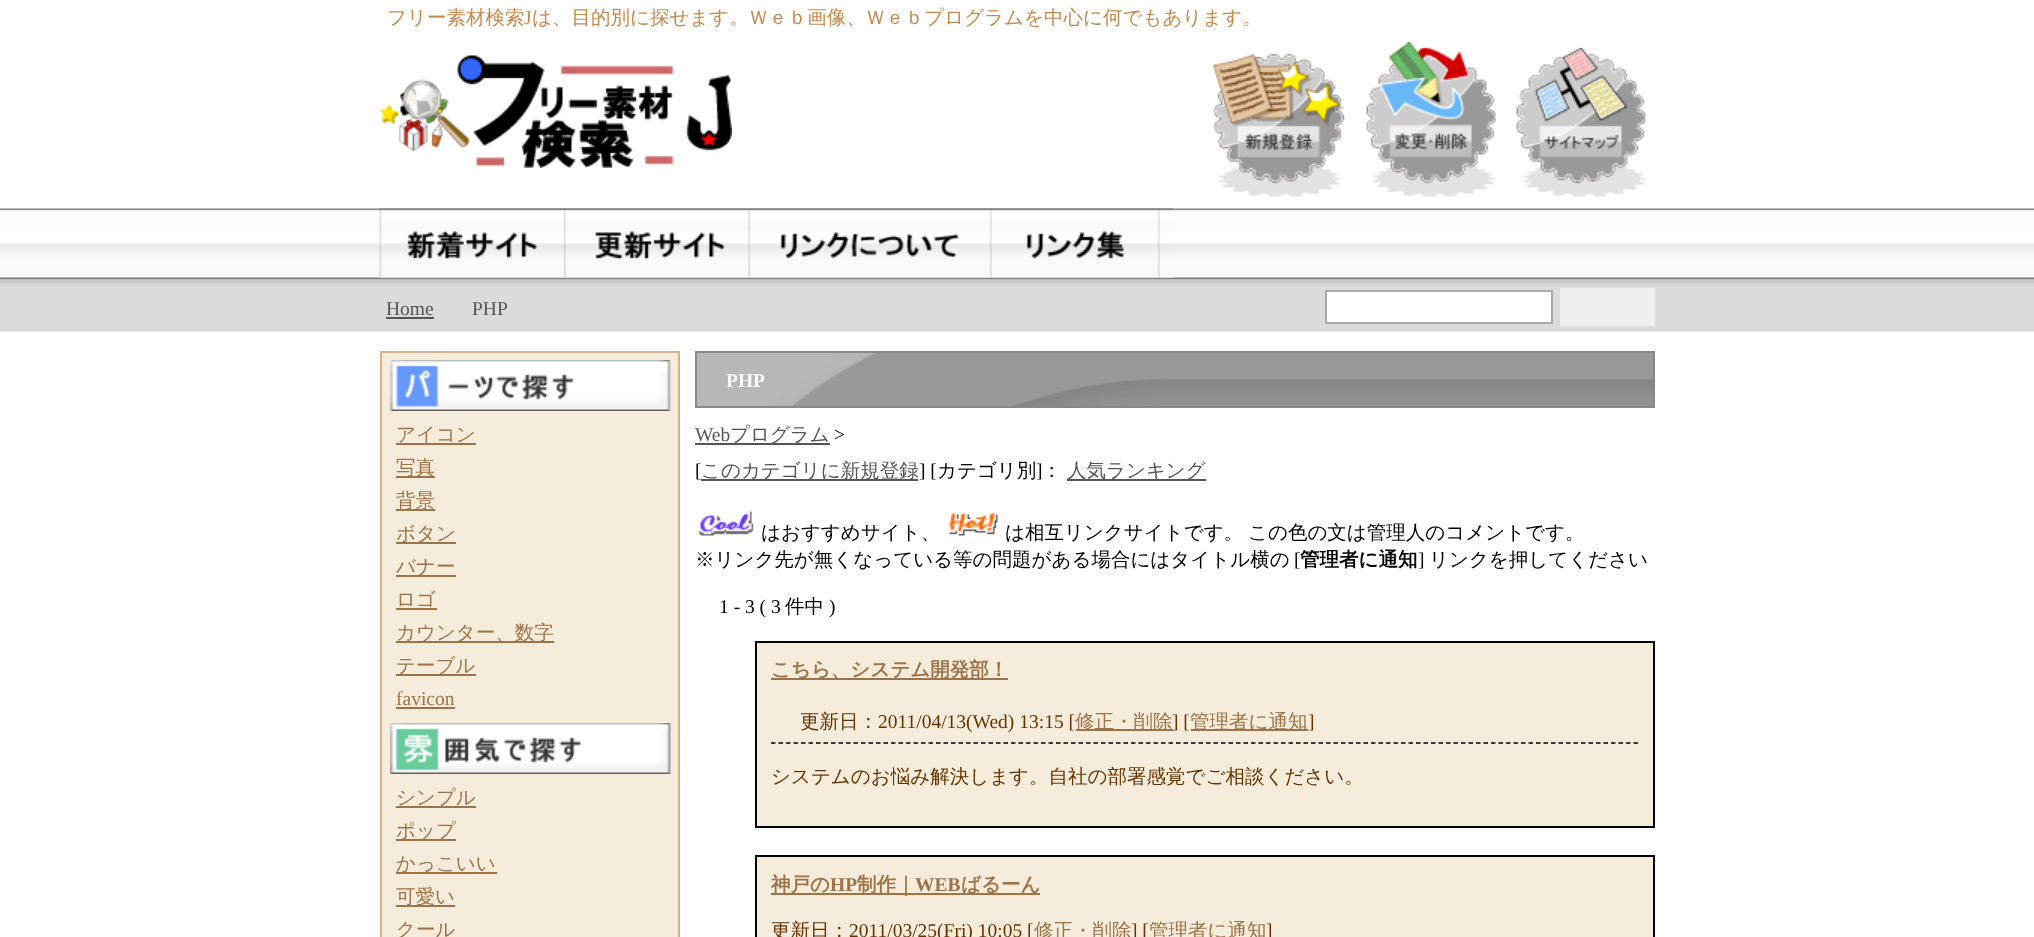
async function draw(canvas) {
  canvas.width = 2034;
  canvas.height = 937;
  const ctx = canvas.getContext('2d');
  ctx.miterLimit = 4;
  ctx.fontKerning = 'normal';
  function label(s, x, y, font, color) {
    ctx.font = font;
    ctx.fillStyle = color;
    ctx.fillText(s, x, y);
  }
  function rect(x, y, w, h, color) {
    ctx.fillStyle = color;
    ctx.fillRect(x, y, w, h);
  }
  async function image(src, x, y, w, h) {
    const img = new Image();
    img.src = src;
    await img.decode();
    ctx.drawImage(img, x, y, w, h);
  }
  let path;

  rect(0, 0, 2034, 937, '#fff');
  await image('assets/img1.png', 0, 208, 2034, 124);
  label('フリー素材検索', 387, 24, '500 19.5px WenQuanYi Zen Hei', '#c7884b');
  label('J', 524, 24, '19.5px Liberation Serif', '#c7884b');
  label('は、目的別に探せます。Ｗｅｂ画像、Ｗｅｂプログラムを中心に何でもあります。', 532, 24, '500 19.5px WenQuanYi Zen Hei', '#c7884b');
  await image('assets/img2.png', 379, 55, 353, 113);
  await image('assets/img3.png', 1213, 53, 132, 144);
  await image('assets/img4.png', 1366, 42, 131, 155);
  await image('assets/img5.png', 1516, 47, 131, 150);
  await image('assets/img6.png', 379, 208, 185, 70);
  await image('assets/img7.png', 564, 208, 185, 70);
  await image('assets/img8.png', 748, 208, 241, 70);
  await image('assets/img9.png', 988, 208, 185, 70);
  label('Home', 386, 315, '19.5px Liberation Serif', '#555');
  rect(386, 317, 48, 2, '#555');
  label('PHP', 472, 315, '19.5px Liberation Serif', '#555');
  ctx.fillStyle = '#fff';
  ctx.beginPath();
  ctx.rect(1326, 291, 226, 32);
  ctx.fill();
  ctx.strokeStyle = '#aaa';
  ctx.lineWidth = 2;
  ctx.stroke();
  rect(1560, 288, 95, 38, '#efefef');
  ctx.fillStyle = '#f6ecdb';
  ctx.beginPath();
  ctx.rect(381, 352, 298, 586);
  ctx.fill();
  ctx.strokeStyle = '#dbb289';
  ctx.stroke();
  await image('assets/img10.png', 390, 360, 281, 51);
  rect(396, 443, 80, 2, '#9e7348');
  label('アイコン', 396, 441, '500 19.5px WenQuanYi Zen Hei', '#9e7348');
  rect(396, 476, 39, 2, '#9e7348');
  label('写真', 396, 474, '500 19.5px WenQuanYi Zen Hei', '#9e7348');
  rect(396, 509, 39, 2, '#9e7348');
  label('背景', 396, 507, '500 19.5px WenQuanYi Zen Hei', '#9e7348');
  rect(396, 542, 60, 2, '#9e7348');
  label('ボタン', 396, 540, '500 19.5px WenQuanYi Zen Hei', '#9e7348');
  rect(396, 575, 60, 2, '#9e7348');
  label('バナー', 396, 573, '500 19.5px WenQuanYi Zen Hei', '#9e7348');
  label('ロゴ', 396, 606, '500 19.5px WenQuanYi Zen Hei', '#9e7348');
  rect(396, 608, 41, 2, '#9e7348');
  rect(396, 641, 158, 2, '#9e7348');
  label('カウンター、数字', 396, 639, '500 19.5px WenQuanYi Zen Hei', '#9e7348');
  rect(396, 674, 80, 2, '#9e7348');
  label('テーブル', 396, 672, '500 19.5px WenQuanYi Zen Hei', '#9e7348');
  label('favicon', 396, 705, '19.5px Liberation Serif', '#9e7348');
  rect(396, 707, 59, 2, '#9e7348');
  await image('assets/img11.png', 390, 723, 281, 51);
  rect(396, 806, 80, 2, '#9e7348');
  label('シンプル', 396, 804, '500 19.5px WenQuanYi Zen Hei', '#9e7348');
  rect(396, 839, 60, 2, '#9e7348');
  label('ポップ', 396, 837, '500 19.5px WenQuanYi Zen Hei', '#9e7348');
  rect(396, 872, 101, 2, '#9e7348');
  label('かっこいい', 396, 870, '500 19.5px WenQuanYi Zen Hei', '#9e7348');
  rect(396, 905, 59, 2, '#9e7348');
  label('可愛い', 396, 903, '500 19.5px WenQuanYi Zen Hei', '#9e7348');
  label('クール', 396, 936, '500 19.5px WenQuanYi Zen Hei', '#9e7348');
  await image('assets/img12.png', 697, 353, 956, 53);
  ctx.strokeStyle = '#888';
  ctx.strokeRect(696, 352, 958, 55);
  label('PHP', 726, 387, 'bold 19.5px Liberation Serif', '#fff');
  label('Web', 695, 441, '19.5px Liberation Serif', '#555');
  rect(695, 443, 135, 2, '#555');
  label('プログラム', 730, 441, '500 19.5px WenQuanYi Zen Hei', '#555');
  label('>', 834, 441, '19.5px Liberation Serif', '#000');
  label('[', 695, 477, '19.5px Liberation Serif', '#000');
  rect(701, 479, 217, 2, '#555');
  label('このカテゴリに新規登録', 701, 477, '500 19.5px WenQuanYi Zen Hei', '#555');
  label('] [', 919, 477, '19.5px Liberation Serif', '#000');
  label('カテゴリ別', 937, 477, '500 19.5px WenQuanYi Zen Hei', '#000');
  label(']', 1036, 477, '19.5px Liberation Serif', '#000');
  label('：', 1042, 477, '500 19.5px WenQuanYi Zen Hei', '#000');
  rect(1067, 479, 139, 2, '#555');
  label('人気ランキング', 1067, 477, '500 19.5px WenQuanYi Zen Hei', '#555');
  await image('assets/img13.png', 698, 511, 56, 25);
  label('はおすすめサイト、', 761, 539, '500 19.5px WenQuanYi Zen Hei', '#000');
  await image('assets/img14.png', 949, 512, 49, 24);
  label('は相互リンクサイトです。', 1005, 539, '500 19.5px WenQuanYi Zen Hei', '#000');
  label('この色の文は管理人のコメントです。', 1248, 539, '500 19.5px WenQuanYi Zen Hei', '#000');
  label('※リンク先が無くなっている等の問題がある場合にはタイトル横の', 695, 566, '500 19.5px WenQuanYi Zen Hei', '#000');
  label('[', 1294, 566, '19.5px Liberation Serif', '#000');
  label('管理者に通知', 1300, 566, 'bold 19.5px WenQuanYi Zen Hei', '#000');
  label(']', 1418, 566, '19.5px Liberation Serif', '#000');
  label('リンクを押してください', 1429, 566, '500 19.5px WenQuanYi Zen Hei', '#000');
  label('1 - 3 ( 3', 719, 613, '19.5px Liberation Serif', '#000');
  label('件中', 785, 613, '500 19.5px WenQuanYi Zen Hei', '#000');
  label(')', 829, 613, '19.5px Liberation Serif', '#000');
  ctx.fillStyle = '#f6ecdb';
  ctx.beginPath();
  ctx.rect(756, 642, 898, 185);
  ctx.fill();
  ctx.strokeStyle = '#000';
  ctx.stroke();
  rect(771, 678, 237, 2, '#9e7348');
  label('こちら、システム開発部！', 771, 676, 'bold 19.5px WenQuanYi Zen Hei', '#9e7348');
  label('更新日：', 800, 728, '500 19.5px WenQuanYi Zen Hei', '#630');
  label('2011/04/13(Wed) 13:15 [', 878, 728, '19.5px Liberation Serif', '#630');
  rect(1076, 729, 97, 2, '#9e7348');
  label('修正・削除', 1075, 728, '500 19.5px WenQuanYi Zen Hei', '#9e7348');
  label('] [', 1172, 728, '19.5px Liberation Serif', '#630');
  rect(1191, 729, 117, 2, '#9e7348');
  label('管理者に通知', 1190, 728, '500 19.5px WenQuanYi Zen Hei', '#9e7348');
  label(']', 1308, 728, '19.5px Liberation Serif', '#630');
  path = new Path2D('M771 743H1638');
  ctx.lineWidth = 1.5;
  ctx.setLineDash([4.5, 3]);
  ctx.stroke(path);
  label('システムのお悩み解決します。自社の部署感覚でご相談ください。', 771, 783, '500 19.5px WenQuanYi Zen Hei', '#630');
  ctx.fillStyle = '#f6ecdb';
  ctx.beginPath();
  ctx.rect(756, 856, 898, 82);
  ctx.fill();
  ctx.lineWidth = 2;
  ctx.setLineDash([]);
  ctx.stroke();
  rect(771, 893, 269, 2, '#9e7348');
  label('神戸の', 771, 891, 'bold 19.5px WenQuanYi Zen Hei', '#9e7348');
  label('HP', 830, 891, 'bold 19.5px Liberation Serif', '#9e7348');
  label('制作｜', 857, 891, 'bold 19.5px WenQuanYi Zen Hei', '#9e7348');
  label('WEB', 915, 891, 'bold 19.5px Liberation Serif', '#9e7348');
  label('ばるーん', 961, 891, 'bold 19.5px WenQuanYi Zen Hei', '#9e7348');
  label('更新日：', 771, 937, '500 19.5px WenQuanYi Zen Hei', '#630');
  label('2011/03/25(Fri) 10:05 [', 849, 937, '19.5px Liberation Serif', '#630');
  label('修正・削除', 1034, 937, '500 19.5px WenQuanYi Zen Hei', '#9e7348');
  label('] [', 1131, 937, '19.5px Liberation Serif', '#630');
  label('管理者に通知', 1149, 937, '500 19.5px WenQuanYi Zen Hei', '#9e7348');
  label(']', 1266, 937, '19.5px Liberation Serif', '#630');
}

draw(document.querySelector('canvas'));
